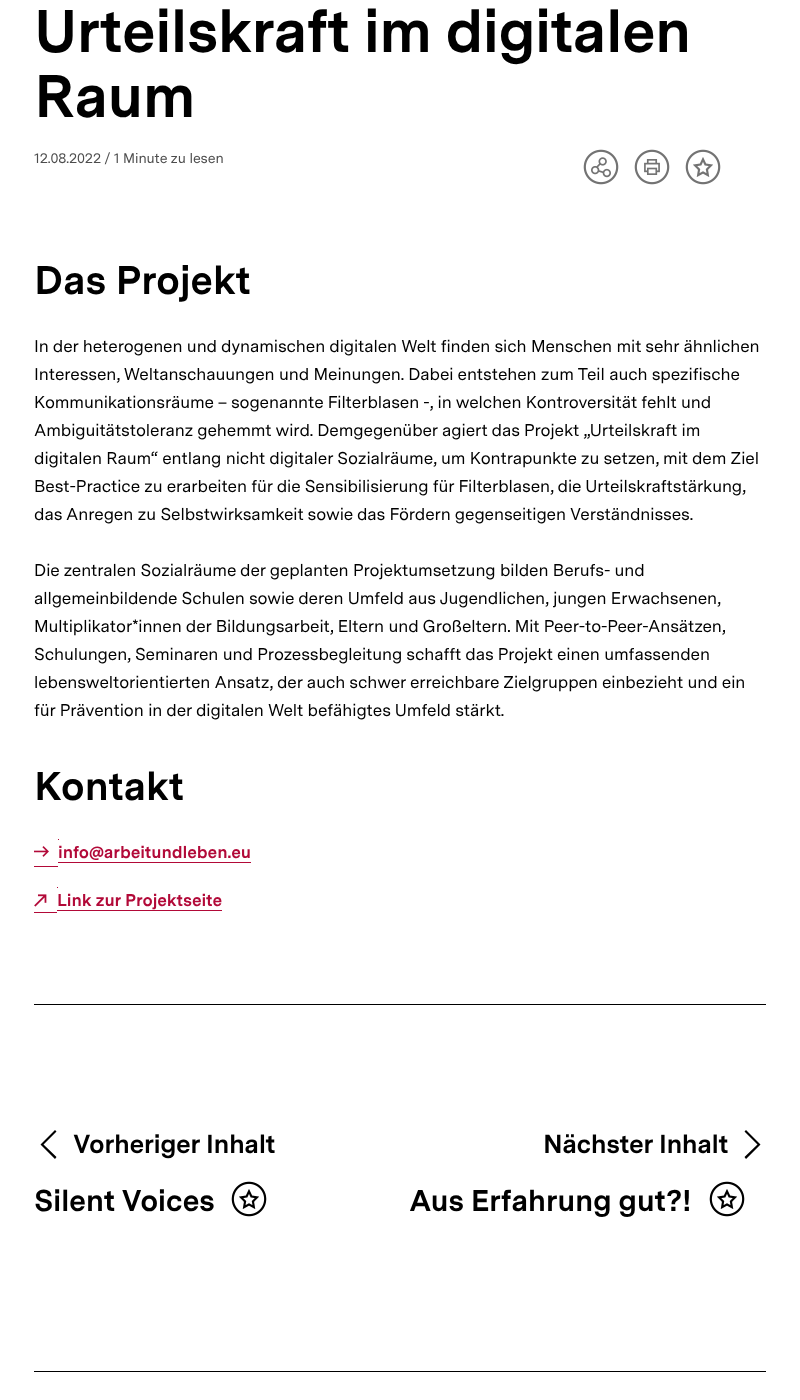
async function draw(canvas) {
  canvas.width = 800;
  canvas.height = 1400;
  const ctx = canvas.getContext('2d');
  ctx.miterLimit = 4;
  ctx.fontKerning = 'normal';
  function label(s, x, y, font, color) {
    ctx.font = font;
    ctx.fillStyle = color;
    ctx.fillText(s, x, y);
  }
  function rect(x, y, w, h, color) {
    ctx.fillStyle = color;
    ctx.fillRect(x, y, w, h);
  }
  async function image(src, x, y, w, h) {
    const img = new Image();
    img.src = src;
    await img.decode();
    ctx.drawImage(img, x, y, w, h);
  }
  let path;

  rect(0, 0, 800, 1400, '#fff');
  ctx.letterSpacing = '-1px';
  label('Urteilskraft im digitalen', 34, 52, 'bold 60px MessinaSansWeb', '#000');
  label('Raum', 34, 117, 'bold 60px MessinaSansWeb', '#000');
  ctx.letterSpacing = '-0.1px';
  label('12.08.2022 / 1 Minute zu lesen', 34, 163, '14px MessinaSansWeb', '#4c4c4c');
  await image('assets/img1.png', 583, 149, 36, 36);
  await image('assets/img2.png', 591, 157, 20, 21);
  ctx.fillStyle = '#ffffff73';
  ctx.beginPath();
  ctx.arc(601, 167, 18, 0, 2 * Math.PI);
  ctx.fill();
  await image('assets/img1.png', 634, 149, 36, 36);
  await image('assets/img3.png', 644, 159, 16, 16);
  ctx.beginPath();
  ctx.arc(652, 167, 18, 0, 2 * Math.PI);
  ctx.fill();
  await image('assets/img1.png', 685, 149, 36, 36);
  await image('assets/img4.png', 693, 157, 20, 20);
  ctx.beginPath();
  ctx.arc(703, 167, 18, 0, 2 * Math.PI);
  ctx.fill();
  ctx.letterSpacing = '-0.4px';
  label('Das Projekt', 34, 294, 'bold 40px MessinaSansWeb', '#000');
  ctx.letterSpacing = '-0.1px';
  label('In der heterogenen und dynamischen digitalen Welt finden sich Menschen mit sehr ähnlichen', 34, 352, '17px MessinaSansWeb', '#000');
  label('Interessen, Weltanschauungen und Meinungen. Dabei entstehen zum Teil auch spezifische', 34, 380, '17px MessinaSansWeb', '#000');
  label('Kommunikationsräume – sogenannte Filterblasen -, in welchen Kontroversität fehlt und', 34, 408, '17px MessinaSansWeb', '#000');
  label('Ambiguitätstoleranz gehemmt wird. Demgegenüber agiert das Projekt „Urteilskraft im', 34, 436, '17px MessinaSansWeb', '#000');
  label('digitalen Raum“ entlang nicht digitaler Sozialräume, um Kontrapunkte zu setzen, mit dem Ziel', 34, 464, '17px MessinaSansWeb', '#000');
  label('Best-Practice zu erarbeiten für die Sensibilisierung für Filterblasen, die Urteilskraftstärkung,', 34, 492, '17px MessinaSansWeb', '#000');
  label('das Anregen zu Selbstwirksamkeit sowie das Fördern gegenseitigen Verständnisses.', 34, 520, '17px MessinaSansWeb', '#000');
  label('Die zentralen Sozialräume der geplanten Projektumsetzung bilden Berufs- und', 34, 576, '17px MessinaSansWeb', '#000');
  label('allgemeinbildende Schulen sowie deren Umfeld aus Jugendlichen, jungen Erwachsenen,', 34, 604, '17px MessinaSansWeb', '#000');
  label('Multiplikator*innen der Bildungsarbeit, Eltern und Großeltern. Mit Peer-to-Peer-Ansätzen,', 34, 632, '17px MessinaSansWeb', '#000');
  label('Schulungen, Seminaren und Prozessbegleitung schafft das Projekt einen umfassenden', 34, 660, '17px MessinaSansWeb', '#000');
  label('lebensweltorientierten Ansatz, der auch schwer erreichbare Zielgruppen einbezieht und ein', 34, 688, '17px MessinaSansWeb', '#000');
  label('für Prävention in der digitalen Welt befähigtes Umfeld stärkt.', 34, 716, '17px MessinaSansWeb', '#000');
  ctx.letterSpacing = '-0.4px';
  label('Kontakt', 34, 800, 'bold 40px MessinaSansWeb', '#000');
  rect(34, 866, 24, 1, '#b20938');
  rect(58, 839, 1, 1, '#b20938');
  rect(58, 862, 193, 1, '#b20938');
  await image('assets/img5.png', 34, 846, 15, 11);
  ctx.letterSpacing = '-0.1px';
  label('info@arbeitundleben.eu', 58, 858, 'bold 17px MessinaSansWeb', '#b20938');
  rect(34, 912, 23, 1, '#b20938');
  rect(57, 887, 1, 1, '#b20938');
  rect(57, 910, 165, 1, '#b20938');
  await image('assets/img6.png', 34, 894, 13, 13);
  label('Link zur Projektseite', 57, 906, 'bold 17px MessinaSansWeb', '#b20938');
  rect(34, 1004, 732, 1, '#000');
  path = new Path2D('M56.5 1131.5L43.5 1144.5L56.5 1157L55 1159L40.5 1144.5L55 1130Z');
  ctx.fill(path);
  ctx.letterSpacing = '-0.5px';
  label('Vorheriger Inhalt', 73, 1153, 'bold 26px MessinaSansWeb', '#000');
  ctx.letterSpacing = '-0.4px';
  label('Silent Voices', 34, 1211, 'bold 30px MessinaSansWeb', '#000');
  await image('assets/img7.png', 231, 1181, 36, 36);
  await image('assets/img4.png', 239, 1189, 20, 20);
  ctx.letterSpacing = '-0.5px';
  label('Nächster Inhalt', 543, 1153, 'bold 26px MessinaSansWeb', '#000');
  path = new Path2D('M744.5 1157L757.5 1144.5L744.5 1131.5L746 1130L760.5 1144.5L746 1159Z');
  ctx.fill(path);
  ctx.letterSpacing = '-0.4px';
  label('Aus Erfahrung gut?!', 409, 1211, 'bold 30px MessinaSansWeb', '#000');
  await image('assets/img1.png', 709, 1181, 36, 36);
  await image('assets/img4.png', 717, 1189, 20, 20);
  rect(34, 1371, 732, 1, '#000');
}

draw(document.querySelector('canvas'));
